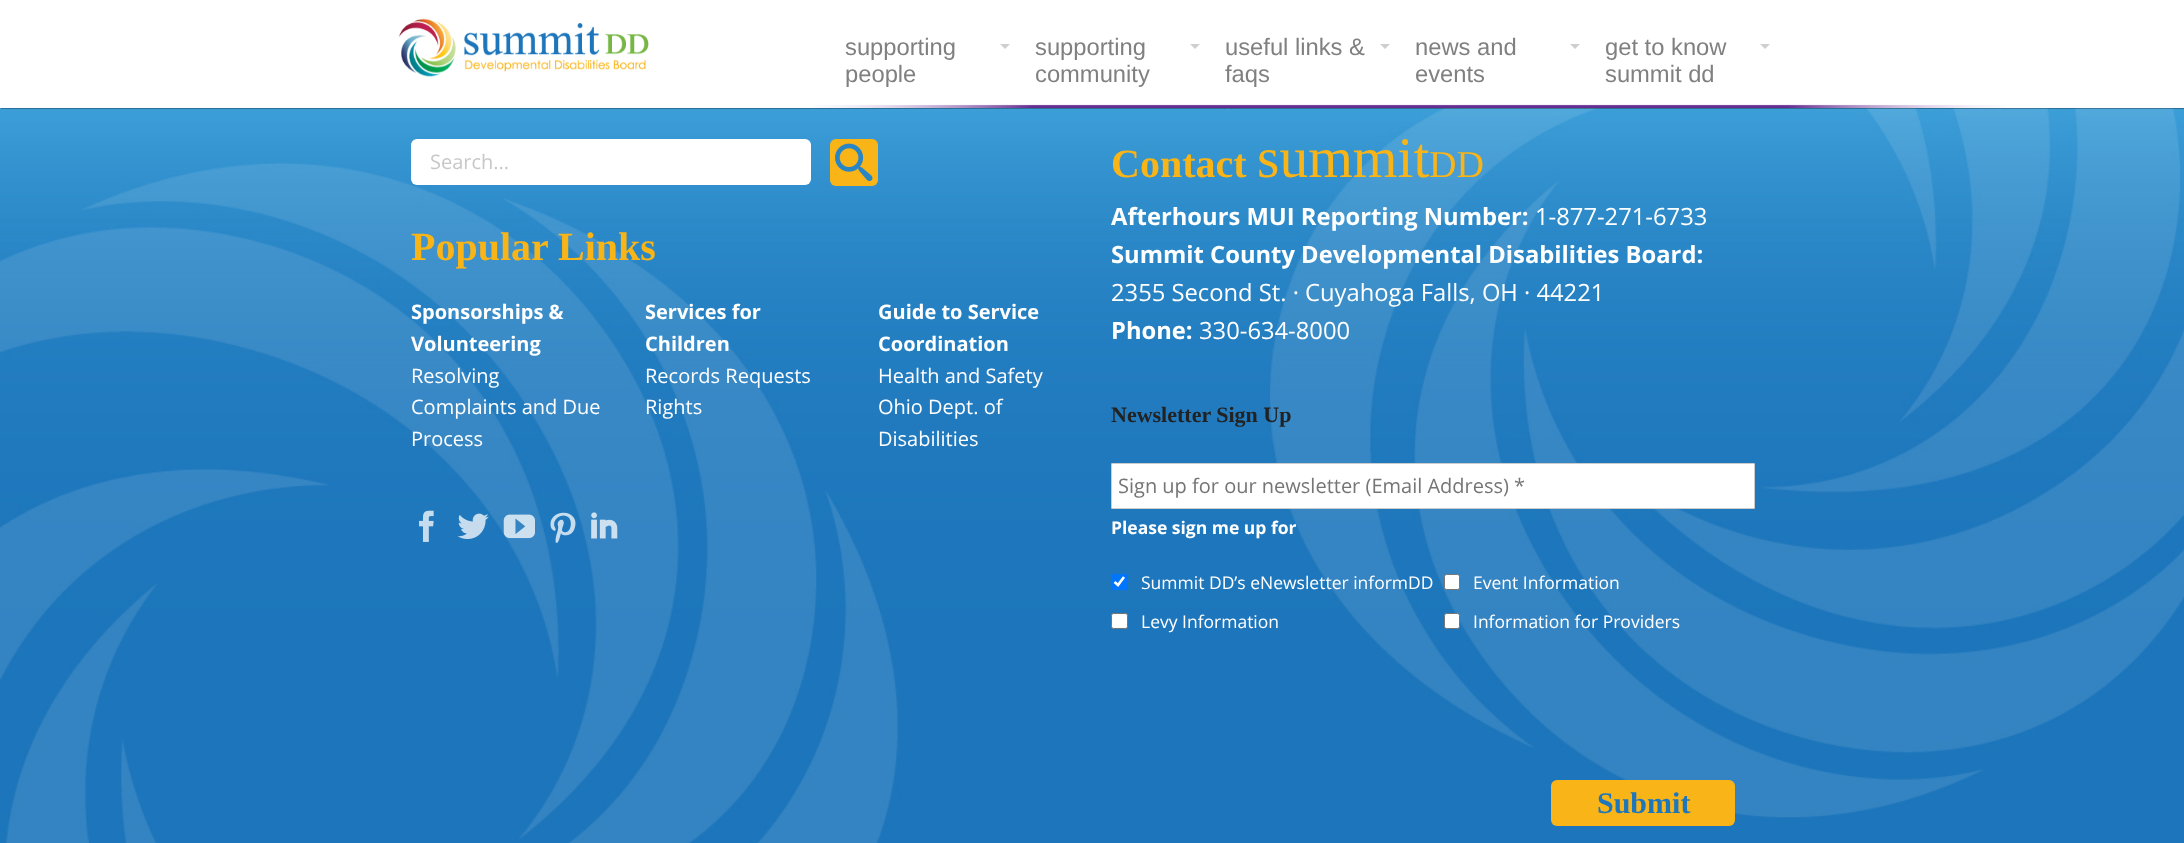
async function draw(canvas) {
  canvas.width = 2184;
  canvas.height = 843;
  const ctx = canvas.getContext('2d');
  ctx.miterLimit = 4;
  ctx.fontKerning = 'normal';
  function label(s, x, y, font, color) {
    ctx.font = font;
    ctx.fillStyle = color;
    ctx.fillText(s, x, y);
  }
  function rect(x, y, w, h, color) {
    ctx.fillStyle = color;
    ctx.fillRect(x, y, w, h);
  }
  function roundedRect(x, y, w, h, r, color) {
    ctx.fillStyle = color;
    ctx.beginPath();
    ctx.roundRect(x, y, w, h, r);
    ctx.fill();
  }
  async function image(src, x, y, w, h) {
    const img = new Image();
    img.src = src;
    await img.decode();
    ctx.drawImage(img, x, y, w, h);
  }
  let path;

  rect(0, 0, 2184, 843, '#fff');
  await image('assets/img3.png', 0, 108, 2184, 735);
  ctx.fillStyle = '#0000004d';
  ctx.filter = 'blur(0.5px)';
  ctx.beginPath();
  ctx.rect(1, 1, 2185, 108);
  ctx.fill();
  ctx.filter = 'none';
  rect(0, 0, 2184, 108, '#fff');
  await image('assets/img1.png', 813, 104, 1193, 4);
  await image('assets/img2.png', 398, 18, 251, 59);
  label('supporting', 845, 55, '23.75px Liberation Sans', '#808080');
  label('people', 845, 82, '23.75px Liberation Sans', '#808080');
  ctx.fillStyle = '#cfcfcf';
  path = new Path2D('M1000 44H1010L1005 49Z');
  ctx.fill(path);
  label('supporting', 1035, 55, '23.75px Liberation Sans', '#808080');
  label('community', 1035, 82, '23.75px Liberation Sans', '#808080');
  ctx.fillStyle = '#cfcfcf';
  path = new Path2D('M1190 44H1200L1195 49Z');
  ctx.fill(path);
  label('useful links &', 1225, 55, '23.75px Liberation Sans', '#808080');
  label('faqs', 1225, 82, '23.75px Liberation Sans', '#808080');
  ctx.fillStyle = '#cfcfcf';
  path = new Path2D('M1380 44H1390L1385 49Z');
  ctx.fill(path);
  label('news and', 1415, 55, '23.75px Liberation Sans', '#808080');
  label('events', 1415, 82, '23.75px Liberation Sans', '#808080');
  ctx.fillStyle = '#cfcfcf';
  path = new Path2D('M1570 44H1580L1575 49Z');
  ctx.fill(path);
  label('get to know', 1605, 55, '23.75px Liberation Sans', '#808080');
  label('summit dd', 1605, 82, '23.75px Liberation Sans', '#808080');
  ctx.fillStyle = '#cfcfcf';
  path = new Path2D('M1760 44H1770L1765 49Z');
  ctx.fill(path);
  roundedRect(411, 139, 400, 46, 6, '#fff');
  label('Search...', 430, 169, '20px Open Sans', '#c8c8c8');
  roundedRect(830, 139, 48, 47, 6, '#f9b417');
  await image('assets/img4.png', 835, 143, 38, 39);
  label('Popular Links', 411, 260, 'bold 40px Liberation Serif', '#f9b417');
  label('Sponsorships &', 411, 319, 'bold 20px Open Sans', '#fff');
  label('Volunteering', 411, 351, 'bold 20px Open Sans', '#fff');
  label('Resolving', 411, 383, '20px Open Sans', '#fff');
  label('Complaints and Due', 411, 414, '20px Open Sans', '#fff');
  label('Process', 411, 446, '20px Open Sans', '#fff');
  label('Services for', 645, 319, 'bold 20px Open Sans', '#fff');
  label('Children', 645, 351, 'bold 20px Open Sans', '#fff');
  label('Records Requests', 645, 383, '20px Open Sans', '#fff');
  label('Rights', 645, 414, '20px Open Sans', '#fff');
  label('Guide to Service', 878, 319, 'bold 20px Open Sans', '#fff');
  label('Coordination', 878, 351, 'bold 20px Open Sans', '#fff');
  label('Health and Safety', 878, 383, '20px Open Sans', '#fff');
  label('Ohio Dept. of', 878, 414, '20px Open Sans', '#fff');
  label('Disabilities', 878, 446, '20px Open Sans', '#fff');
  await image('assets/img5.png', 419, 510, 15, 32);
  await image('assets/img6.png', 457, 513, 32, 26);
  await image('assets/img7.png', 503, 514, 32, 25);
  await image('assets/img8.png', 550, 512, 26, 31);
  await image('assets/img9.png', 591, 512, 27, 27);
  label('Contact', 1111, 177, 'bold 40px Liberation Serif', '#f9b417');
  label('summit', 1257, 177, '57.5px Liberation Serif', '#f9b417');
  label('DD', 1429, 177, '38px Liberation Serif', '#f9b417');
  label('Afterhours MUI Reporting Number:', 1111, 225, 'bold 23.75px Open Sans', '#fff');
  label('1-877-271-6733', 1535, 225, '23.75px Open Sans', '#fff');
  label('Summit County Developmental Disabilities Board:', 1111, 263, 'bold 23.75px Open Sans', '#fff');
  label('2355 Second St. · Cuyahoga Falls, OH · 44221', 1111, 301, '23.75px Open Sans', '#fff');
  label('Phone:', 1111, 339, 'bold 23.75px Open Sans', '#fff');
  label('330-634-8000', 1199, 339, '23.75px Open Sans', '#fff');
  label('Newsletter Sign Up', 1111, 422, 'bold 22px Liberation Serif', '#222');
  ctx.fillStyle = '#fff';
  ctx.beginPath();
  ctx.roundRect(1111.5, 463.5, 643, 45, 0.5);
  ctx.fill();
  ctx.strokeStyle = '#ccc';
  ctx.stroke();
  label('Sign up for our newsletter (Email Address) *', 1118, 493, '20px Open Sans', '#757575');
  label('Please sign me up for', 1111, 534, 'bold 17.5px Open Sans', '#fff');
  roundedRect(1111, 574, 17, 16, 2.5, '#0075ff');
  path = new Path2D('M1114.5 582L1118 585L1124 577');
  ctx.strokeStyle = '#fff';
  ctx.lineWidth = 2.6;
  ctx.stroke(path);
  label('Summit DD’s eNewsletter informDD', 1141, 589, '17.5px Open Sans', '#fff');
  ctx.beginPath();
  ctx.roundRect(1444.5, 574.5, 15, 15, 2);
  ctx.fill();
  ctx.strokeStyle = '#767676';
  ctx.lineWidth = 1;
  ctx.stroke();
  label('Event Information', 1473, 589, '17.5px Open Sans', '#fff');
  ctx.beginPath();
  ctx.roundRect(1111.5, 613.5, 16, 15, 2);
  ctx.fill();
  ctx.stroke();
  label('Levy Information', 1141, 628, '17.5px Open Sans', '#fff');
  ctx.beginPath();
  ctx.roundRect(1444.5, 613.5, 15, 15, 2);
  ctx.fill();
  ctx.stroke();
  label('Information for Providers', 1473, 628, '17.5px Open Sans', '#fff');
  roundedRect(1551, 780, 184, 46, 6, '#f9b417');
  label('Submit', 1597, 813, 'bold 30px Liberation Serif', '#1e77bc');
}

draw(document.querySelector('canvas'));
